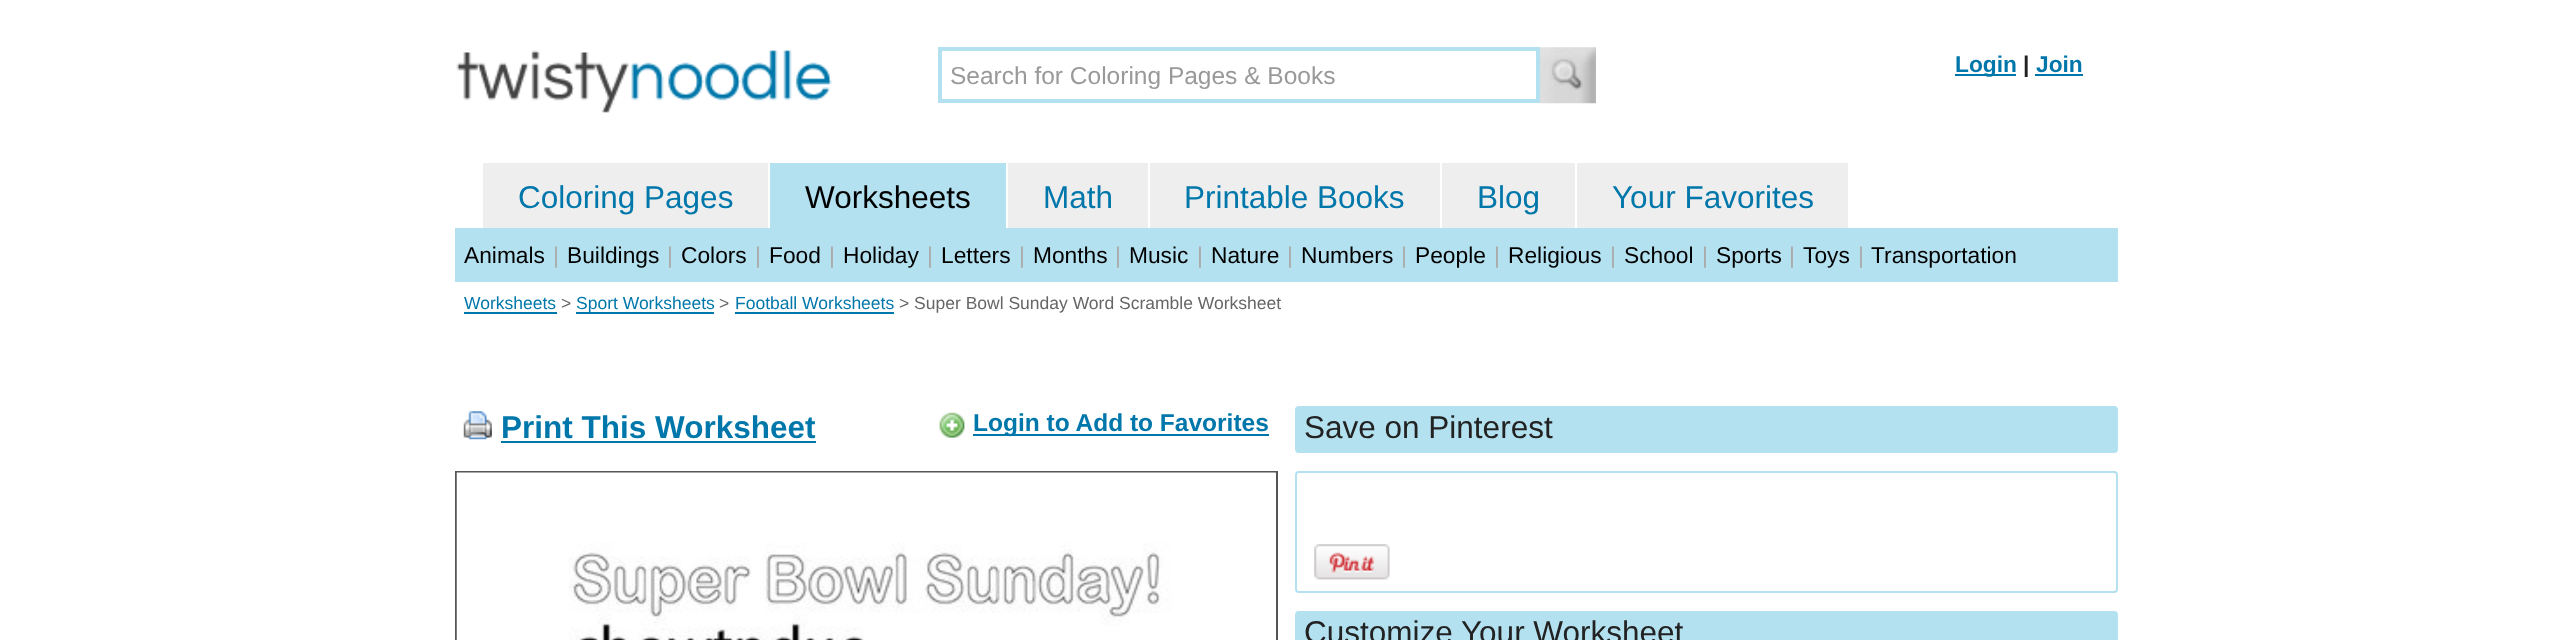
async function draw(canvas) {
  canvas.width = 2572;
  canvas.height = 640;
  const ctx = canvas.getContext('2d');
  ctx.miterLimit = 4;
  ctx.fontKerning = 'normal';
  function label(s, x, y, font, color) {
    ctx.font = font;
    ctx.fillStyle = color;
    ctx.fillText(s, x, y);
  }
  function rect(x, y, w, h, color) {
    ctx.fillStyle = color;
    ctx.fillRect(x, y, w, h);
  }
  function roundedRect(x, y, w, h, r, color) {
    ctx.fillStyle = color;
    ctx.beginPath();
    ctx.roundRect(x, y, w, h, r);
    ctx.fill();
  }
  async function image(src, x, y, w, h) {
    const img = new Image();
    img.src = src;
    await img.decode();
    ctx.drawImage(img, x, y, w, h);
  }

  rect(0, 0, 2572, 640, '#fff');
  await image('assets/img1.png', 456, 50, 376, 63);
  ctx.strokeStyle = '#b3e1f0';
  ctx.lineWidth = 4;
  ctx.strokeRect(940, 49, 598, 52);
  label('Search for Coloring Pages & Books', 950, 84, '24.5px Liberation Sans', '#999');
  await image('assets/img2.png', 1540, 47, 56, 57);
  rect(1955, 74, 61, 2, '#07a');
  label('Login', 1955, 72, 'bold 22.75px Liberation Sans', '#07a');
  label('|', 2023, 72, 'bold 22.75px Liberation Sans', '#222');
  label('Join', 2036, 72, 'bold 22.75px Liberation Sans', '#07a');
  rect(2035, 74, 48, 2, '#07a');
  rect(483, 163, 285, 65, '#eee');
  label('Coloring Pages', 518, 208, '31.5px Liberation Sans', '#07a');
  rect(770, 163, 236, 65, '#b3e1f0');
  label('Worksheets', 805, 208, '31.5px Liberation Sans', '#000');
  rect(1008, 163, 140, 65, '#eee');
  label('Math', 1043, 208, '31.5px Liberation Sans', '#07a');
  rect(1150, 163, 290, 65, '#eee');
  label('Printable Books', 1184, 208, '31.5px Liberation Sans', '#07a');
  rect(1442, 163, 133, 65, '#eee');
  label('Blog', 1477, 208, '31.5px Liberation Sans', '#07a');
  rect(1577, 163, 271, 65, '#eee');
  label('Your Favorites', 1612, 208, '31.5px Liberation Sans', '#07a');
  rect(455, 228, 1663, 54, '#b3e1f0');
  label('Animals', 464, 263, '22.75px Liberation Sans', '#000');
  label('|', 553, 263, '22.75px Liberation Sans', '#aaa');
  label('Buildings', 567, 263, '22.75px Liberation Sans', '#000');
  label('|', 667, 263, '22.75px Liberation Sans', '#aaa');
  label('Colors', 681, 263, '22.75px Liberation Sans', '#000');
  label('|', 755, 263, '22.75px Liberation Sans', '#aaa');
  label('Food', 769, 263, '22.75px Liberation Sans', '#000');
  label('|', 829, 263, '22.75px Liberation Sans', '#aaa');
  label('Holiday', 843, 263, '22.75px Liberation Sans', '#000');
  label('|', 927, 263, '22.75px Liberation Sans', '#aaa');
  label('Letters', 941, 263, '22.75px Liberation Sans', '#000');
  label('|', 1019, 263, '22.75px Liberation Sans', '#aaa');
  label('Months', 1033, 263, '22.75px Liberation Sans', '#000');
  label('|', 1115, 263, '22.75px Liberation Sans', '#aaa');
  label('Music', 1129, 263, '22.75px Liberation Sans', '#000');
  label('|', 1197, 263, '22.75px Liberation Sans', '#aaa');
  label('Nature', 1211, 263, '22.75px Liberation Sans', '#000');
  label('|', 1287, 263, '22.75px Liberation Sans', '#aaa');
  label('Numbers', 1301, 263, '22.75px Liberation Sans', '#000');
  label('|', 1401, 263, '22.75px Liberation Sans', '#aaa');
  label('People', 1415, 263, '22.75px Liberation Sans', '#000');
  label('|', 1494, 263, '22.75px Liberation Sans', '#aaa');
  label('Religious', 1508, 263, '22.75px Liberation Sans', '#000');
  label('|', 1610, 263, '22.75px Liberation Sans', '#aaa');
  label('School', 1624, 263, '22.75px Liberation Sans', '#000');
  label('|', 1702, 263, '22.75px Liberation Sans', '#aaa');
  label('Sports', 1716, 263, '22.75px Liberation Sans', '#000');
  label('|', 1789, 263, '22.75px Liberation Sans', '#aaa');
  label('Toys', 1803, 263, '22.75px Liberation Sans', '#000');
  label('|', 1858, 263, '22.75px Liberation Sans', '#aaa');
  label('Transportation', 1871, 263, '22.75px Liberation Sans', '#000');
  label('Worksheets', 464, 309, '17.5px Liberation Sans', '#07a');
  rect(464, 312, 93, 2, '#07a');
  label('>', 561, 309, '17.5px Liberation Sans', '#666');
  rect(576, 312, 138, 2, '#07a');
  label('Sport Worksheets', 576, 309, '17.5px Liberation Sans', '#07a');
  label('>', 719, 309, '17.5px Liberation Sans', '#666');
  label('Football Worksheets', 735, 309, '17.5px Liberation Sans', '#07a');
  rect(735, 312, 159, 2, '#07a');
  label('> Super Bowl Sunday Word Scramble Worksheet', 899, 309, '17.5px Liberation Sans', '#666');
  await image('assets/img3.png', 463, 411, 29, 29);
  label('Print This Worksheet', 501, 438, 'bold 31.5px Liberation Sans', '#07a');
  rect(501, 441, 315, 2, '#07a');
  await image('assets/img4.png', 939, 412, 26, 26);
  rect(973, 434, 296, 2, '#07a');
  label('Login to Add to Favorites', 973, 431, 'bold 24.5px Liberation Sans', '#07a');
  ctx.strokeStyle = '#555';
  ctx.lineWidth = 2;
  ctx.strokeRect(456, 472, 821, 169);
  await image('assets/img5.png', 456, 472, 820, 168);
  roundedRect(1295, 406, 823, 47, 4, '#b3e1f0');
  label('Save on Pinterest', 1304, 438, '31.5px Liberation Sans', '#222');
  ctx.beginPath();
  ctx.roundRect(1296, 472, 821, 120, 3);
  ctx.strokeStyle = '#b3e1f0';
  ctx.stroke();
  await image('assets/img6.png', 1314, 544, 76, 36);
  roundedRect(1295, 611, 823, 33, 4, '#b3e1f0');
  label('Customize Your Worksheet', 1304, 643, '31.5px Liberation Sans', '#222');
}

draw(document.querySelector('canvas'));
